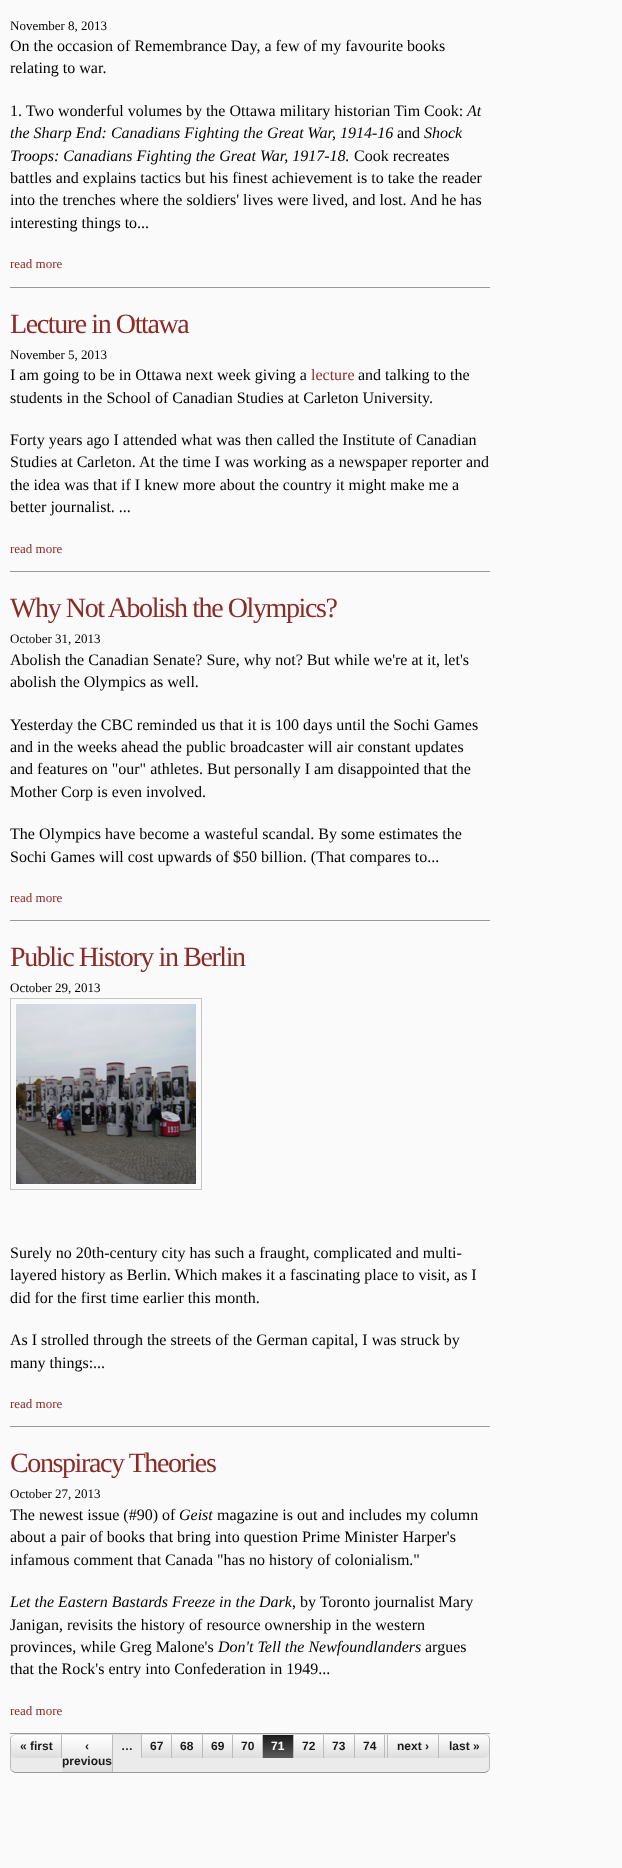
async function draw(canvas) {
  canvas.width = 622;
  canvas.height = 1868;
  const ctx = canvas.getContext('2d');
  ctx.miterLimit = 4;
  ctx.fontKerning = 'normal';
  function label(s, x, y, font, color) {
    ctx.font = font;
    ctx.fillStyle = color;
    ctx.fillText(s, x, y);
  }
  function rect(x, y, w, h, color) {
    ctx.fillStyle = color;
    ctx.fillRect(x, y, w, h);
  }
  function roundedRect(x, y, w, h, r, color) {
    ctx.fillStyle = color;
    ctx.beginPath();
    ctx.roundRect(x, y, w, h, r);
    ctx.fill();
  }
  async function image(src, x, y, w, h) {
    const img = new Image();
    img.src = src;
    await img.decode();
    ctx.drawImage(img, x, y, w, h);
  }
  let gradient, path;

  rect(0, 0, 622, 1868, '#fafafa');
  rect(10, 287, 480, 1, '#999');
  label('November 8, 2013', 10, 30, '13px Liberation Serif', '#000');
  label('On the occasion of Remembrance Day, a few of my favourite books', 10, 51, '16px Liberation Serif', '#000');
  label('relating to war.', 10, 73, '16px Liberation Serif', '#000');
  label('1. Two wonderful volumes by the Ottawa military historian Tim Cook:', 10, 116, '16px Liberation Serif', '#000');
  label('At', 467, 116, 'italic 16px Liberation Serif', '#000');
  label('the Sharp End: Canadians Fighting the Great War, 1914-16', 10, 138, 'italic 16px Liberation Serif', '#000');
  label('and', 397, 138, '16px Liberation Serif', '#000');
  label('Shock', 424, 138, 'italic 16px Liberation Serif', '#000');
  label('Troops: Canadians Fighting the Great War, 1917-18.', 10, 161, 'italic 16px Liberation Serif', '#000');
  label('Cook recreates', 354, 161, '16px Liberation Serif', '#000');
  label('battles and explains tactics but his finest achievement is to take the reader', 10, 183, '16px Liberation Serif', '#000');
  label('into the trenches where the soldiers\' lives were lived, and lost. And he has', 10, 205, '16px Liberation Serif', '#000');
  label('interesting things to...', 10, 228, '16px Liberation Serif', '#000');
  label('read more', 10, 268, '13px Liberation Serif', '#8a2b27');
  rect(10, 571, 480, 1, '#999');
  ctx.letterSpacing = '-1.4px';
  label('Lecture in Ottawa', 10, 333, '28px Liberation Serif', '#8a2b27');
  ctx.letterSpacing = '0px';
  label('November 5, 2013', 10, 359, '13px Liberation Serif', '#000');
  label('I am going to be in Ottawa next week giving a', 10, 380, '16px Liberation Serif', '#000');
  label('lecture', 311, 380, '16px Liberation Serif', '#8a2b27');
  label('and talking to the', 358, 380, '16px Liberation Serif', '#000');
  label('students in the School of Canadian Studies at Carleton University.', 10, 403, '16px Liberation Serif', '#000');
  label('Forty years ago I attended what was then called the Institute of Canadian', 10, 445, '16px Liberation Serif', '#000');
  label('Studies at Carleton. At the time I was working as a newspaper reporter and', 10, 467, '16px Liberation Serif', '#000');
  label('the idea was that if I knew more about the country it might make me a', 10, 490, '16px Liberation Serif', '#000');
  label('better journalist. ...', 10, 512, '16px Liberation Serif', '#000');
  label('read more', 10, 553, '13px Liberation Serif', '#8a2b27');
  rect(10, 920, 480, 1, '#999');
  ctx.letterSpacing = '-1.4px';
  label('Why Not Abolish the Olympics?', 10, 617, '28px Liberation Serif', '#8a2b27');
  ctx.letterSpacing = '0px';
  label('October 31, 2013', 10, 643, '13px Liberation Serif', '#000');
  label('Abolish the Canadian Senate? Sure, why not? But while we\'re at it, let\'s', 10, 665, '16px Liberation Serif', '#000');
  label('abolish the Olympics as well.', 10, 687, '16px Liberation Serif', '#000');
  label('Yesterday the CBC reminded us that it is 100 days until the Sochi Games', 10, 730, '16px Liberation Serif', '#000');
  label('and in the weeks ahead the public broadcaster will air constant updates', 10, 752, '16px Liberation Serif', '#000');
  label('and features on "our" athletes. But personally I am disappointed that the', 10, 774, '16px Liberation Serif', '#000');
  label('Mother Corp is even involved.', 10, 797, '16px Liberation Serif', '#000');
  label('The Olympics have become a wasteful scandal. By some estimates the', 10, 839, '16px Liberation Serif', '#000');
  label('Sochi Games will cost upwards of $50 billion. (That compares to...', 10, 862, '16px Liberation Serif', '#000');
  label('read more', 10, 902, '13px Liberation Serif', '#8a2b27');
  rect(10, 1426, 480, 1, '#999');
  ctx.letterSpacing = '-1.4px';
  label('Public History in Berlin', 10, 966, '28px Liberation Serif', '#8a2b27');
  ctx.letterSpacing = '0px';
  label('October 29, 2013', 10, 992, '13px Liberation Serif', '#000');
  ctx.strokeStyle = '#c6c4c4';
  ctx.strokeRect(10.5, 998.5, 191, 191);
  await image('assets/img1.png', 16, 1004, 180, 180);
  label('Surely no 20th-century city has such a fraught, complicated and multi-', 10, 1258, '16px Liberation Serif', '#000');
  label('layered history as Berlin. Which makes it a fascinating place to visit, as I', 10, 1280, '16px Liberation Serif', '#000');
  label('did for the first time earlier this month.', 10, 1303, '16px Liberation Serif', '#000');
  label('As I strolled through the streets of the German capital, I was struck by', 10, 1345, '16px Liberation Serif', '#000');
  label('many things:...', 10, 1368, '16px Liberation Serif', '#000');
  label('read more', 10, 1408, '13px Liberation Serif', '#8a2b27');
  rect(10, 1733, 480, 1, '#999');
  ctx.letterSpacing = '-1.4px';
  label('Conspiracy Theories', 10, 1472, '28px Liberation Serif', '#8a2b27');
  ctx.letterSpacing = '0px';
  label('October 27, 2013', 10, 1498, '13px Liberation Serif', '#000');
  label('The newest issue (#90) of', 10, 1520, '16px Liberation Serif', '#000');
  label('Geist', 179, 1520, 'italic 16px Liberation Serif', '#000');
  label('magazine is out and includes my column', 217, 1520, '16px Liberation Serif', '#000');
  label('about a pair of books that bring into question Prime Minister Harper\'s', 10, 1542, '16px Liberation Serif', '#000');
  label('infamous comment that Canada "has no history of colonialism."', 10, 1565, '16px Liberation Serif', '#000');
  label('Let the Eastern Bastards Freeze in the Dark', 10, 1607, 'italic 16px Liberation Serif', '#000');
  label(', by Toronto journalist Mary', 292, 1607, '16px Liberation Serif', '#000');
  label('Janigan, revisits the history of resource ownership in the western', 10, 1630, '16px Liberation Serif', '#000');
  label('provinces, while Greg Malone\'s', 10, 1652, '16px Liberation Serif', '#000');
  label('Don\'t Tell the Newfoundlanders', 218, 1652, 'italic 16px Liberation Serif', '#000');
  label('argues', 425, 1652, '16px Liberation Serif', '#000');
  label('that the Rock\'s entry into Confederation in 1949...', 10, 1674, '16px Liberation Serif', '#000');
  label('read more', 10, 1715, '13px Liberation Serif', '#8a2b27');
  roundedRect(10, 1734, 480, 39, 5, '#ebebeb');
  path = new Path2D('M12 1736L15 1734.5H485L488 1736');
  ctx.strokeStyle = '#ddd';
  ctx.stroke(path);
  path = new Path2D('M488 1736C489 1736.5 489.5 1738 489.5 1739V1768C489.5 1769 489 1770.5 488 1771');
  ctx.strokeStyle = '#bbb';
  ctx.stroke(path);
  path = new Path2D('M488 1771L485 1772.5H15L12 1771');
  ctx.strokeStyle = '#999';
  ctx.stroke(path);
  path = new Path2D('M12 1771C11 1770.5 10.5 1769 10.5 1768V1739C10.5 1738 11 1736.5 12 1736');
  ctx.strokeStyle = '#bbb';
  ctx.stroke(path);
  rect(61, 1735, 1, 23, '#bbb');
  gradient = ctx.createLinearGradient(11, 1735, 11, 1758);
  gradient.addColorStop(0, '#fff');
  gradient.addColorStop(1, '#ddd');
  ctx.fillStyle = gradient;
  ctx.beginPath();
  ctx.roundRect(11, 1735, 50, 23, [5, 0, 0, 5]);
  ctx.fill();
  label('« first', 20, 1750, 'bold 12px Liberation Sans', '#1a1a1a');
  rect(112, 1735, 1, 37, '#bbb');
  gradient = ctx.createLinearGradient(62, 1735, 62, 1772);
  gradient.addColorStop(0, '#fff');
  gradient.addColorStop(1, '#ddd');
  ctx.fillStyle = gradient;
  ctx.fillRect(62, 1735, 50, 37);
  label('‹', 85, 1750, 'bold 12px Liberation Sans', '#1a1a1a');
  label('previous', 62, 1765, 'bold 12px Liberation Sans', '#1a1a1a');
  rect(141, 1735, 1, 23, '#bbb');
  label('…', 121, 1750, 'bold 12px Liberation Sans', '#1a1a1a');
  rect(171, 1735, 1, 23, '#bbb');
  gradient = ctx.createLinearGradient(142, 1735, 142, 1758);
  gradient.addColorStop(0, '#fff');
  gradient.addColorStop(1, '#ddd');
  ctx.fillStyle = gradient;
  ctx.fillRect(142, 1735, 29, 23);
  label('67', 150, 1750, 'bold 12px Liberation Sans', '#1a1a1a');
  rect(202, 1735, 1, 23, '#bbb');
  gradient = ctx.createLinearGradient(172, 1735, 172, 1758);
  gradient.addColorStop(0, '#fff');
  gradient.addColorStop(1, '#ddd');
  ctx.fillStyle = gradient;
  ctx.fillRect(172, 1735, 30, 23);
  label('68', 180, 1750, 'bold 12px Liberation Sans', '#1a1a1a');
  rect(232, 1735, 1, 23, '#bbb');
  gradient = ctx.createLinearGradient(203, 1735, 203, 1758);
  gradient.addColorStop(0, '#fff');
  gradient.addColorStop(1, '#ddd');
  ctx.fillStyle = gradient;
  ctx.fillRect(203, 1735, 29, 23);
  label('69', 211, 1750, 'bold 12px Liberation Sans', '#1a1a1a');
  rect(262, 1735, 1, 23, '#bbb');
  gradient = ctx.createLinearGradient(233, 1735, 233, 1758);
  gradient.addColorStop(0, '#fff');
  gradient.addColorStop(1, '#ddd');
  ctx.fillStyle = gradient;
  ctx.fillRect(233, 1735, 29, 23);
  label('70', 241, 1750, 'bold 12px Liberation Sans', '#1a1a1a');
  gradient = ctx.createLinearGradient(263, 1735, 263, 1758);
  gradient.addColorStop(0, '#1a1a1a');
  gradient.addColorStop(1, '#5a5a5a');
  ctx.fillStyle = gradient;
  ctx.fillRect(263, 1735, 30, 23);
  rect(293, 1735, 1, 23, '#bbb');
  label('71', 271, 1750, 'bold 12px Liberation Sans', '#fff');
  rect(323, 1735, 1, 23, '#bbb');
  gradient = ctx.createLinearGradient(294, 1735, 294, 1758);
  gradient.addColorStop(0, '#fff');
  gradient.addColorStop(1, '#ddd');
  ctx.fillStyle = gradient;
  ctx.fillRect(294, 1735, 29, 23);
  label('72', 302, 1750, 'bold 12px Liberation Sans', '#1a1a1a');
  rect(354, 1735, 1, 23, '#bbb');
  gradient = ctx.createLinearGradient(324, 1735, 324, 1758);
  gradient.addColorStop(0, '#fff');
  gradient.addColorStop(1, '#ddd');
  ctx.fillStyle = gradient;
  ctx.fillRect(324, 1735, 30, 23);
  label('73', 332, 1750, 'bold 12px Liberation Sans', '#1a1a1a');
  rect(384, 1735, 1, 23, '#bbb');
  gradient = ctx.createLinearGradient(355, 1735, 355, 1758);
  gradient.addColorStop(0, '#fff');
  gradient.addColorStop(1, '#ddd');
  ctx.fillStyle = gradient;
  ctx.fillRect(355, 1735, 29, 23);
  label('74', 363, 1750, 'bold 12px Liberation Sans', '#1a1a1a');
  gradient = ctx.createLinearGradient(385, 1735, 385, 1758);
  gradient.addColorStop(0, '#fff');
  gradient.addColorStop(1, '#ddd');
  ctx.fillStyle = gradient;
  ctx.fillRect(385, 1735, 2, 23);
  rect(438, 1735, 1, 23, '#bbb');
  rect(387, 1735, 1, 23, '#bbb');
  gradient = ctx.createLinearGradient(388, 1735, 388, 1758);
  gradient.addColorStop(0, '#fff');
  gradient.addColorStop(1, '#ddd');
  ctx.fillStyle = gradient;
  ctx.fillRect(388, 1735, 50, 23);
  label('next ›', 397, 1750, 'bold 12px Liberation Sans', '#1a1a1a');
  gradient = ctx.createLinearGradient(439, 1735, 439, 1758);
  gradient.addColorStop(0, '#fff');
  gradient.addColorStop(1, '#ddd');
  ctx.fillStyle = gradient;
  ctx.beginPath();
  ctx.roundRect(439, 1735, 50, 23, [0, 5, 5, 0]);
  ctx.fill();
  label('last »', 449, 1750, 'bold 12px Liberation Sans', '#1a1a1a');
}

draw(document.querySelector('canvas'));
